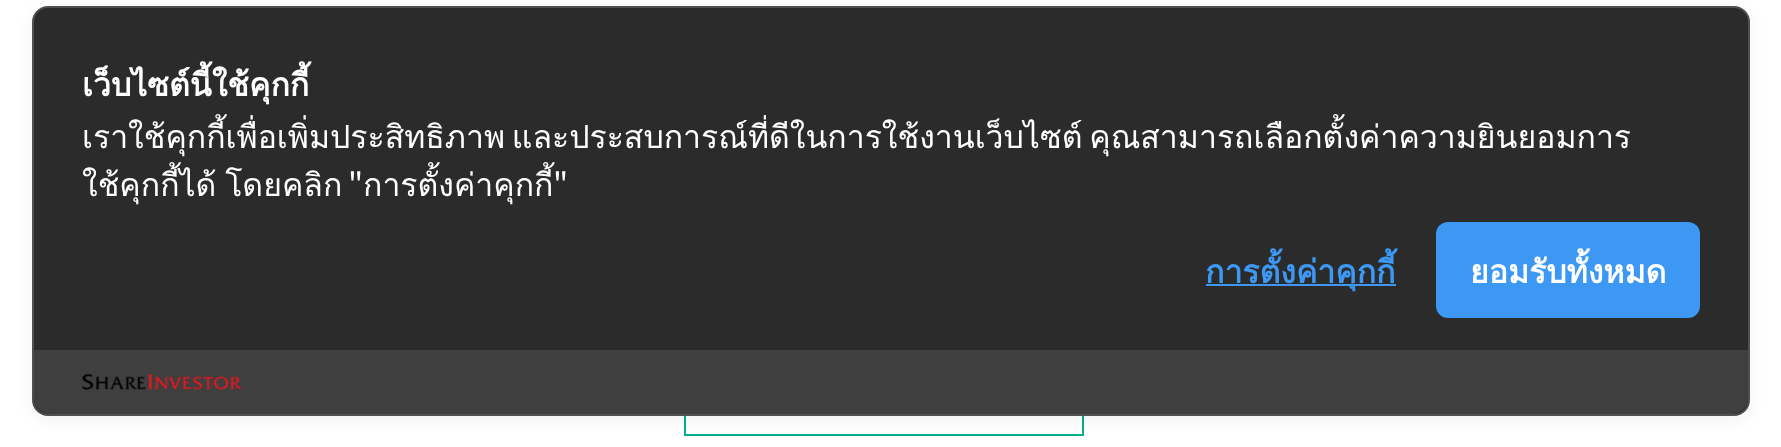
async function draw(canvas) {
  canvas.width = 1781;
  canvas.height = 447;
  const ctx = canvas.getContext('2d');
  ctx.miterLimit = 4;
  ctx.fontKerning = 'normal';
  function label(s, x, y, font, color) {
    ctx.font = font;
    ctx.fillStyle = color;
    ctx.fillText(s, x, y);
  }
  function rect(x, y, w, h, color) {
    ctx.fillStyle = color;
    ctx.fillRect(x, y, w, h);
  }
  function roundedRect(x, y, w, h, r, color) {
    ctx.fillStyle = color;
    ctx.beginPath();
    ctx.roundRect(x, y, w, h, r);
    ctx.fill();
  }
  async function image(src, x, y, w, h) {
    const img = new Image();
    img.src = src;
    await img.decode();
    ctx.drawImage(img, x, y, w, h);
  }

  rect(0, 0, 1781, 447, '#fff');
  ctx.strokeStyle = '#00b28c';
  ctx.lineWidth = 2;
  ctx.strokeRect(685, 349, 398, 86);
  ctx.fillStyle = '#0000000d';
  ctx.filter = 'blur(8px)';
  ctx.beginPath();
  ctx.roundRect(32, 10, 1718, 410, 16);
  ctx.fill();
  ctx.filter = 'none';
  ctx.fillStyle = '#2b2b2b';
  ctx.beginPath();
  ctx.roundRect(33, 7, 1716, 408, 15);
  ctx.fill();
  ctx.strokeStyle = '#505050';
  ctx.stroke();
  label('เว็บไซต์นี้ใช้คุกกี้', 82, 96, 'bold 32px Loma', '#fff');
  ctx.wordSpacing = '-4px';
  label('เราใช้คุกกี้เพื่อเพิ่มประสิทธิภาพ และประสบการณ์ที่ดีในการใช้งานเว็บไซต์ คุณสามารถเลือกตั้งค่าความยินยอมการ', 82, 148, '32px Loma', '#fff');
  ctx.wordSpacing = '-2px';
  label('ใช้คุกกี้ได้ โดยคลิก', 82, 196, '32px Loma', '#fff');
  ctx.wordSpacing = '0px';
  label('"', 348, 196, '32px Noto Sans JP', '#fff');
  label('การตั้งค่าคุกกี้', 363, 196, '32px Loma', '#fff');
  label('"', 553, 196, '32px Noto Sans JP', '#fff');
  rect(1206, 284, 190, 2, '#3d98f3');
  label('การตั้งค่าคุกกี้', 1205, 283, 'bold 32px Loma', '#3d98f3');
  roundedRect(1436, 222, 264, 96, 12, '#3d98f3');
  label('ยอมรับทั้งหมด', 1470, 283, 'bold 32px Loma', '#fff');
  ctx.fillStyle = '#3f3f3f';
  ctx.beginPath();
  ctx.roundRect(34, 350, 1714, 64, [0, 0, 16, 16]);
  ctx.fill();
  await image('assets/img1.png', 82, 374, 160, 16);
}

draw(document.querySelector('canvas'));
